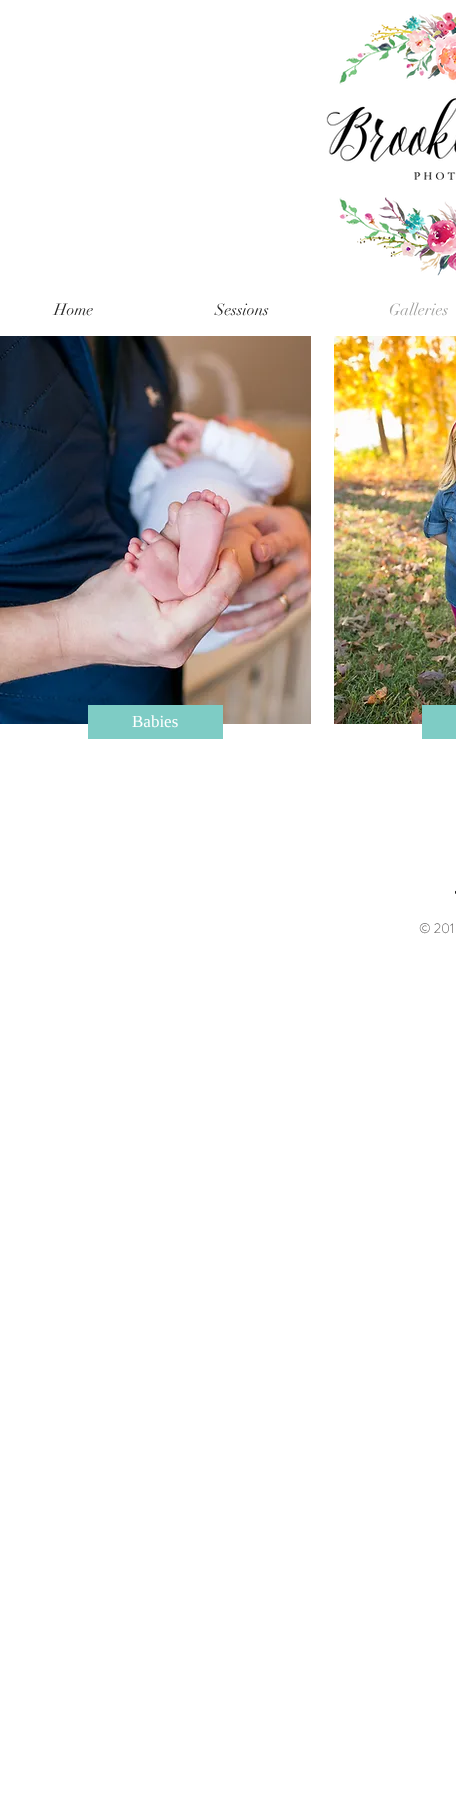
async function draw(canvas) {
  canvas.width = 456;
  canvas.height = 1806;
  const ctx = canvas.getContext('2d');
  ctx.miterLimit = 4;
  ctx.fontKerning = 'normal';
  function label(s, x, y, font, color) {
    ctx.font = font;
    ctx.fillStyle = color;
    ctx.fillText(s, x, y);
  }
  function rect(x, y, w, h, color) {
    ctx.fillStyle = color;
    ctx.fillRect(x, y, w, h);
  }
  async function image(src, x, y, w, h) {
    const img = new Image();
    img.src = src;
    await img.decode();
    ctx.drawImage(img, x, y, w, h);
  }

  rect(0, 0, 456, 1806, '#fff');
  await image('assets/img1.png', 326, 12, 130, 264);
  label('Home', 54, 315, '16px didot', '#292929');
  label('Sessions', 215, 315, '16px didot', '#292929');
  label('Galleries', 389, 315, '16px didot', '#a0a09f');
  await image('assets/img2.png', 0, 336, 311, 388);
  rect(88, 705, 135, 34, '#7eccc5');
  label('Babies', 132, 727, '17px Liberation Serif', '#fff');
  await image('assets/img3.png', 334, 336, 122, 388);
  rect(422, 705, 34, 34, '#7eccc5');
  await image('assets/img4.png', 455, 890, 1, 4);
  label('© 201', 419, 933, '300 14px "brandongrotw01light"', '#605e5e');
}

draw(document.querySelector('canvas'));
